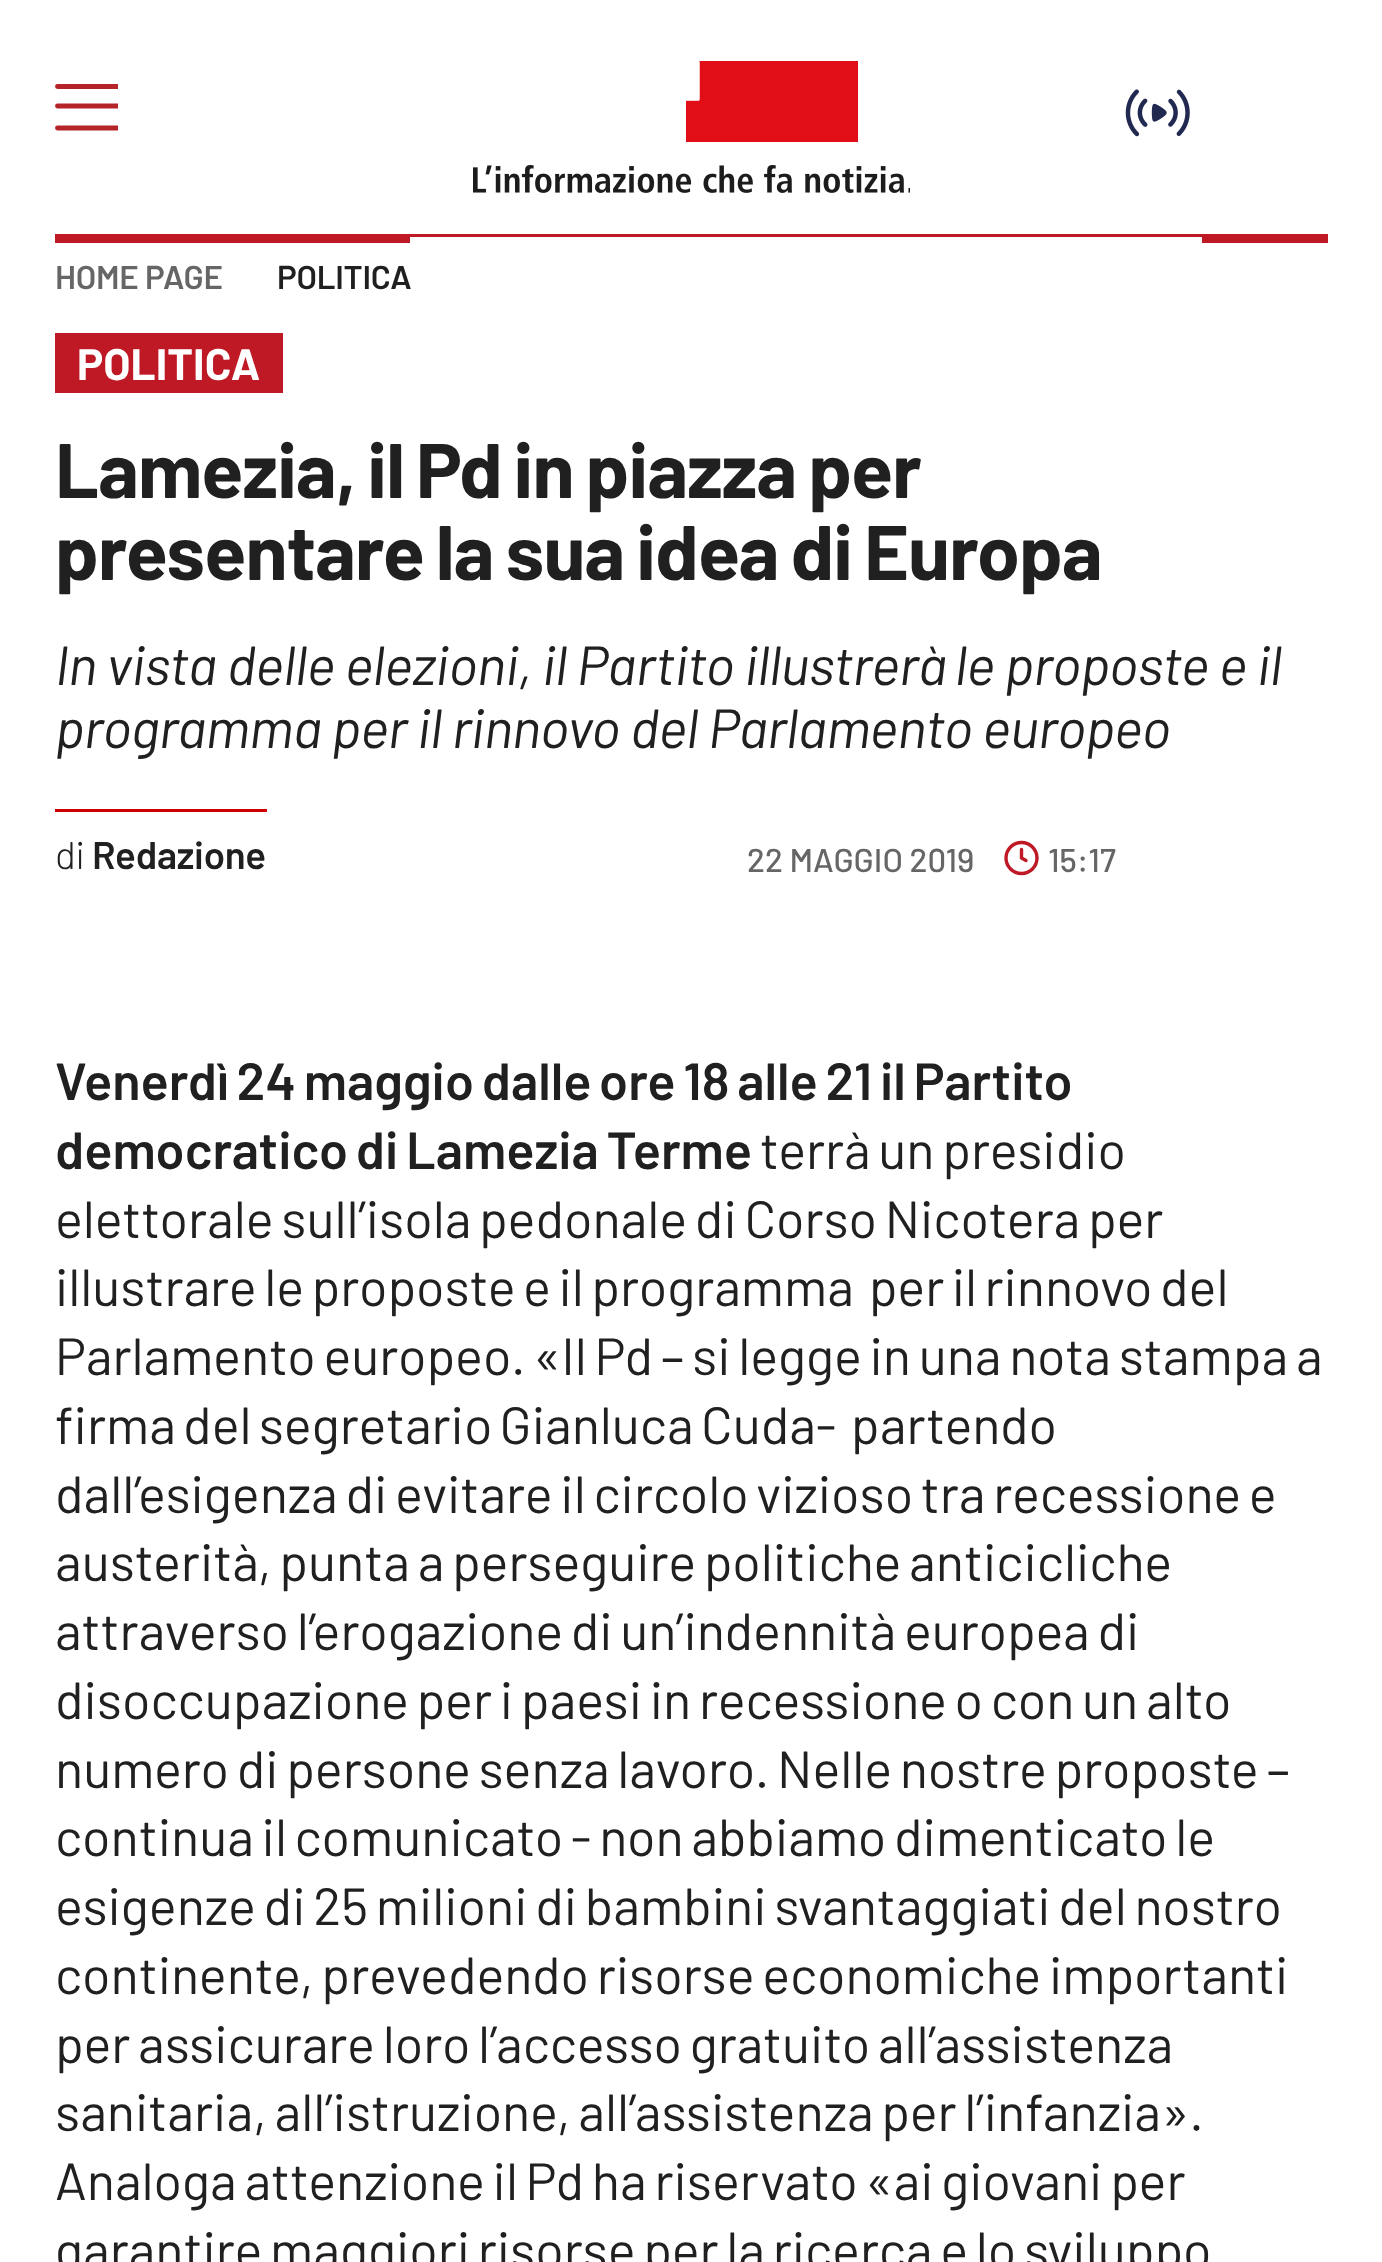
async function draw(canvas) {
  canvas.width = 1382;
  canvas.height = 2262;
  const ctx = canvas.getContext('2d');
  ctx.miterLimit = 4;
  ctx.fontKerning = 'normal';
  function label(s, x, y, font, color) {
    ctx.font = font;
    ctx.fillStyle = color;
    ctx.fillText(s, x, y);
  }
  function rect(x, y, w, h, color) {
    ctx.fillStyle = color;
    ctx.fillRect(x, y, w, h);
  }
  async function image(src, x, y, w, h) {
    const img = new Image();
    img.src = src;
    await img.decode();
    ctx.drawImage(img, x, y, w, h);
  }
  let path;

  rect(0, 0, 1382, 2262, '#fff');
  await image('assets/img1.png', 686, 61, 172, 81);
  await image('assets/img2.png', 473, 165, 437, 28);
  await image('assets/img3.png', 1125, 89, 65, 48);
  rect(1202, 237, 126, 6, '#be1924');
  rect(55, 234, 1273, 3, '#be1924');
  ctx.save();
  ctx.beginPath();
  ctx.rect(55, 77, 63, 63);
  ctx.clip();
  path = new Path2D('M57.5 86.5H118M57.5 106H118M57.5 128H118');
  ctx.strokeStyle = '#b42428';
  ctx.lineWidth = 4.9;
  ctx.lineCap = 'round';
  ctx.stroke(path);
  ctx.restore();
  rect(55, 237, 355, 6, '#be1924');
  ctx.letterSpacing = '-0.25px';
  label('HOME PAGE', 55, 289, '600 33px Barlow', '#666');
  label('POLITICA', 277, 289, '600 33px Barlow', '#212020');
  rect(55, 333, 228, 60, '#be1924');
  ctx.letterSpacing = '0px';
  label('POLITICA', 77, 380, 'bold 44px Barlow', '#fff');
  ctx.letterSpacing = '-0.8px';
  ctx.wordSpacing = '-2.75px';
  label('Lamezia, il Pd in piazza per', 55, 498, 'bold 77px Barlow', '#212020');
  label('presentare la sua idea di Europa', 55, 580, 'bold 77px Barlow', '#212020');
  ctx.letterSpacing = '-0.55px';
  ctx.wordSpacing = '0px';
  label('In vista delle elezioni, il Partito illustrerà le proposte e il', 55, 685, 'italic 55px Barlow', '#212020');
  label('programma per il rinnovo del Parlamento europeo', 55, 748, 'italic 55px Barlow', '#212020');
  rect(55, 809, 212, 3, '#c00');
  label('di', 55, 869, '300 38.5px Barlow', '#212020');
  ctx.letterSpacing = '-0.25px';
  label('Redazione', 92, 869, '600 38.5px Barlow', '#212020');
  ctx.letterSpacing = '0px';
  label('22 MAGGIO 2019', 747, 872, '500 33px Barlow', '#666');
  path = new Path2D('M1021.5 849.5V858L1026 860.5M1037 858C1037 866.5 1030 873.5 1021.5 873.5C1013 873.5 1006 866.5 1006 858C1006 849.5 1013 842.5 1021.5 842.5C1030 842.5 1037 849.5 1037 858Z');
  ctx.strokeStyle = '#be1924';
  ctx.lineWidth = 3.4;
  ctx.lineCap = 'round';
  ctx.lineJoin = 'round';
  ctx.stroke(path);
  label('15:17', 1048, 872, '500 33px Barlow', '#666');
  ctx.wordSpacing = '-2.75px';
  label('Venerdì 24 maggio dalle ore 18 alle 21 il Partito', 55, 1100, '600 52.25px Barlow', '#212020');
  label('democratico di Lamezia Terme', 55, 1169, '600 52.25px Barlow', '#212020');
  label('terrà un presidio', 760, 1169, '52.25px Barlow', '#212020');
  label('elettorale sull’isola pedonale di Corso Nicotera per', 55, 1238, '52.25px Barlow', '#212020');
  ctx.wordSpacing = '-3px';
  label('illustrare le proposte e il programma  per il rinnovo del', 55, 1306, '52.25px Barlow', '#212020');
  ctx.wordSpacing = '-2.75px';
  label('Parlamento europeo. «Il Pd – si legge in una nota stampa a', 55, 1375, '52.25px Barlow', '#212020');
  ctx.wordSpacing = '-3.25px';
  label('firma del segretario Gianluca Cuda-  partendo', 55, 1444, '52.25px Barlow', '#212020');
  ctx.wordSpacing = '-2.75px';
  label('dall’esigenza di evitare il circolo vizioso tra recessione e', 55, 1513, '52.25px Barlow', '#212020');
  label('austerità, punta a perseguire politiche anticicliche', 55, 1581, '52.25px Barlow', '#212020');
  label('attraverso l’erogazione di un’indennità europea di', 55, 1650, '52.25px Barlow', '#212020');
  label('disoccupazione per i paesi in recessione o con un alto', 55, 1719, '52.25px Barlow', '#212020');
  label('numero di persone senza lavoro. Nelle nostre proposte –', 55, 1788, '52.25px Barlow', '#212020');
  label('continua il comunicato - non abbiamo dimenticato le', 55, 1856, '52.25px Barlow', '#212020');
  label('esigenze di 25 milioni di bambini svantaggiati del nostro', 55, 1925, '52.25px Barlow', '#212020');
  label('continente, prevedendo risorse economiche importanti', 55, 1994, '52.25px Barlow', '#212020');
  label('per assicurare loro l’accesso gratuito all’assistenza', 55, 2063, '52.25px Barlow', '#212020');
  label('sanitaria, all’istruzione, all’assistenza per l’infanzia».', 55, 2131, '52.25px Barlow', '#212020');
  label('Analoga attenzione il Pd ha riservato «ai giovani per', 55, 2200, '52.25px Barlow', '#212020');
  label('garantire maggiori risorse per la ricerca e lo sviluppo', 55, 2269, '52.25px Barlow', '#212020');
}

draw(document.querySelector('canvas'));
